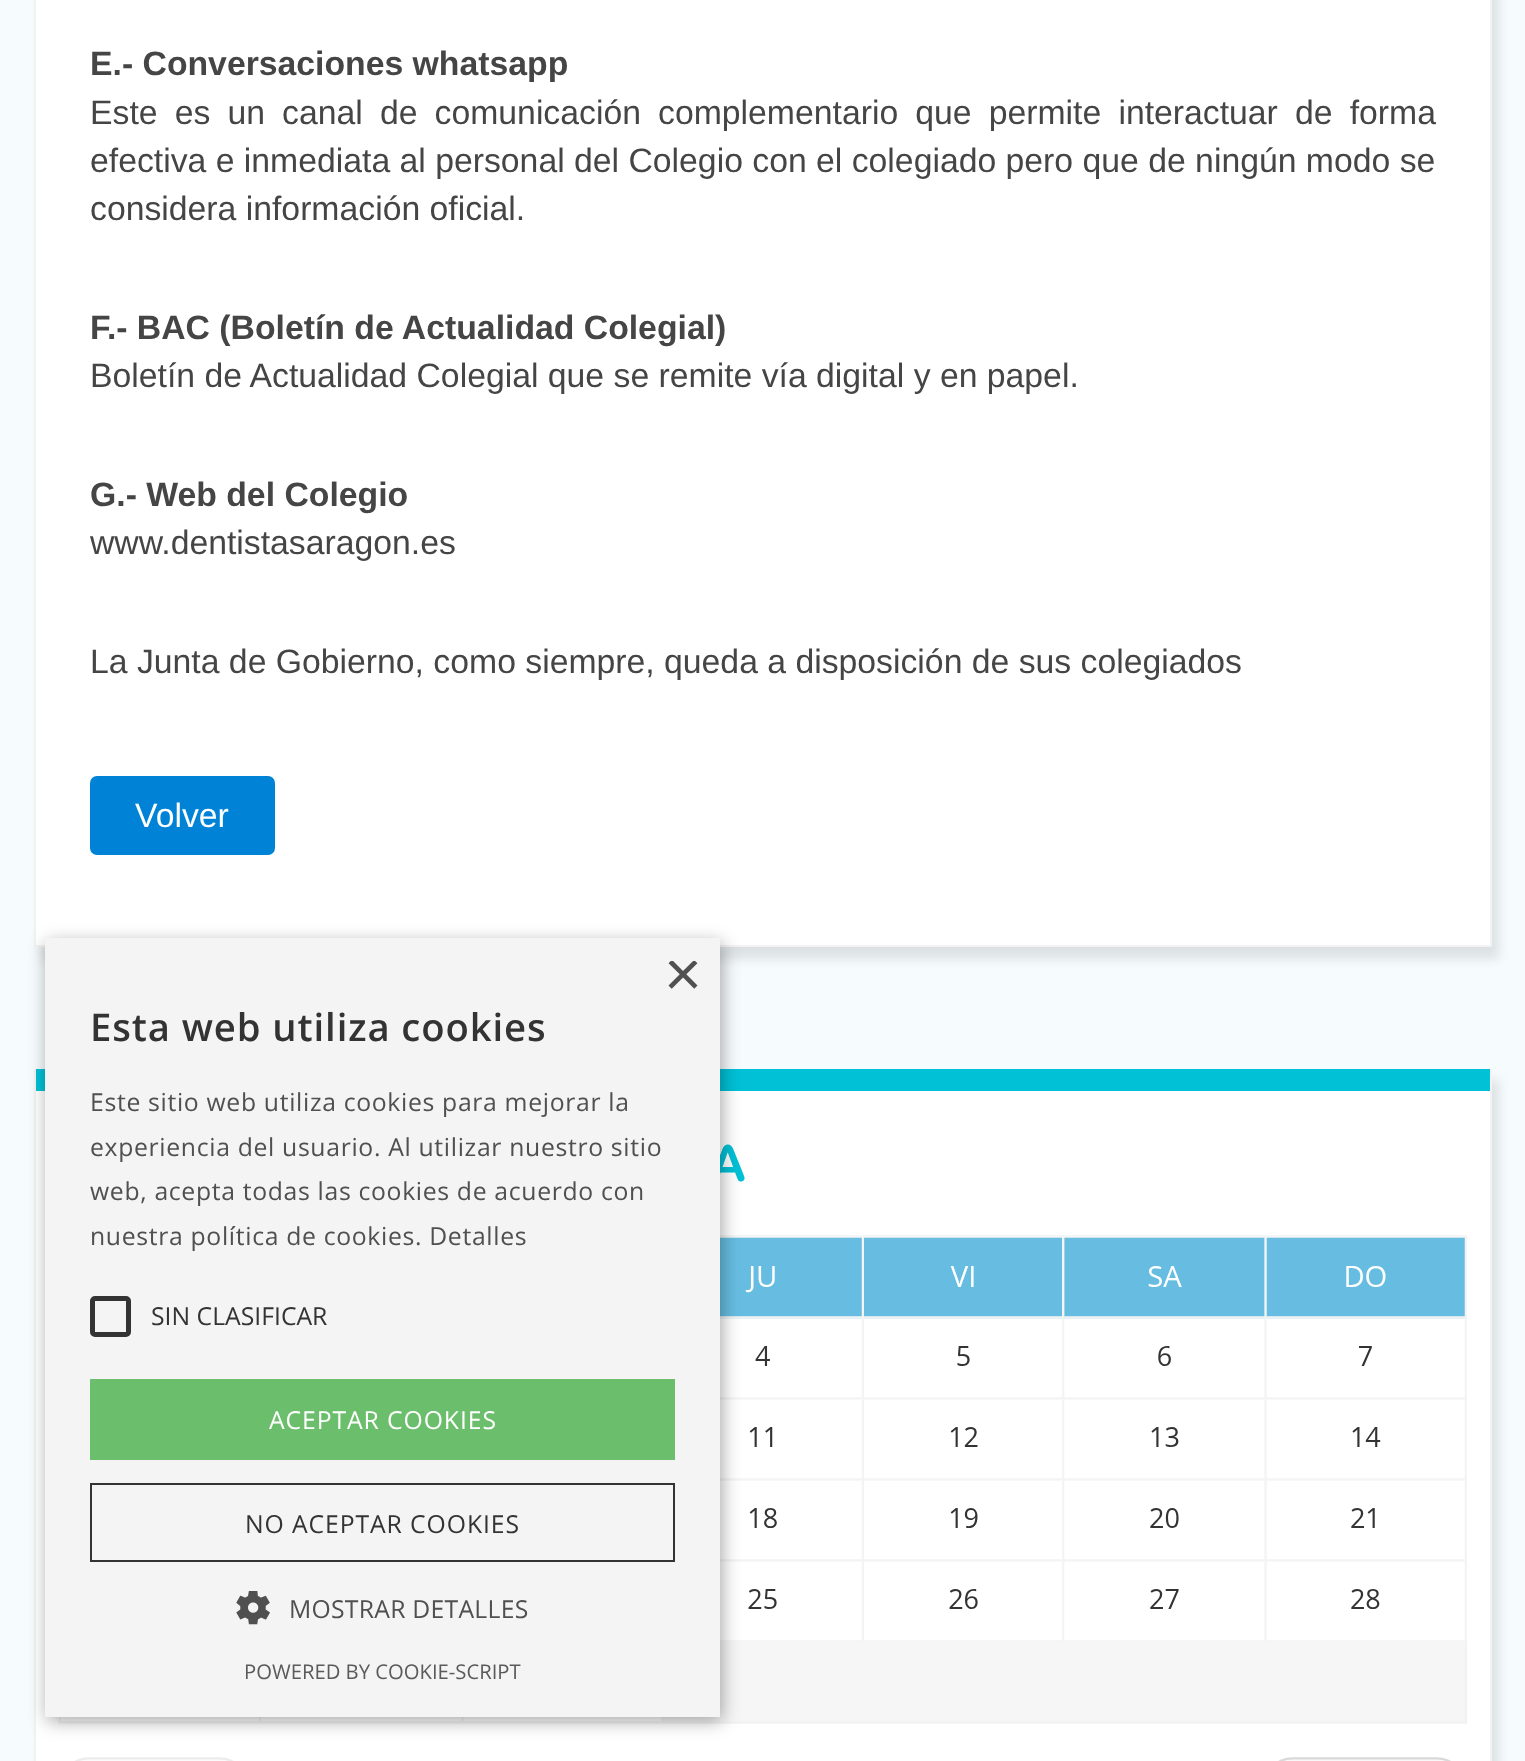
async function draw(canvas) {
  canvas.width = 1525;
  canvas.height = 1761;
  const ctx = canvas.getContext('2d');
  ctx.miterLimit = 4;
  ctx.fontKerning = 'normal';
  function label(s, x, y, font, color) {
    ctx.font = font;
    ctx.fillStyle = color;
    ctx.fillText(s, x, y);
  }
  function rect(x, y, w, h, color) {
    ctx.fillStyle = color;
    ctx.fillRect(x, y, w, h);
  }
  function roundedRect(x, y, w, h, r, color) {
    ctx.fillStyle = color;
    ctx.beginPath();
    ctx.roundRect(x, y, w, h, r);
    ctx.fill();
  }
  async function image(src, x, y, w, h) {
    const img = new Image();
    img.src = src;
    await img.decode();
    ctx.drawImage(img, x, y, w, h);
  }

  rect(0, 0, 1525, 1761, '#f6fbfe');
  ctx.fillStyle = '#0000001a';
  ctx.filter = 'blur(5.5px)';
  ctx.beginPath();
  ctx.rect(41, -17, 1458, 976);
  ctx.fill();
  ctx.filter = 'none';
  ctx.fillStyle = '#fff';
  ctx.beginPath();
  ctx.rect(35, -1, 1456, 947);
  ctx.fill();
  ctx.strokeStyle = '#f2f2f2';
  ctx.lineWidth = 2;
  ctx.stroke();
  label('E.- Conversaciones whatsapp', 90, 75, 'bold 33.75px Liberation Sans', '#454545');
  ctx.wordSpacing = '7.75px';
  label('Este es un canal de comunicación complementario que permite interactuar de forma', 90, 124, '33.75px Liberation Sans', '#454545');
  ctx.wordSpacing = '0px';
  label('efectiva e inmediata al personal del Colegio con el colegiado pero que de ningún modo se', 90, 172, '33.75px Liberation Sans', '#454545');
  label('considera información oficial.', 90, 220, '33.75px Liberation Sans', '#454545');
  label('F.- BAC (Boletín de Actualidad Colegial)', 90, 339, 'bold 33.75px Liberation Sans', '#454545');
  label('Boletín de Actualidad Colegial que se remite vía digital y en papel.', 90, 387, '33.75px Liberation Sans', '#454545');
  label('G.- Web del Colegio', 90, 506, 'bold 33.75px Liberation Sans', '#454545');
  label('www.dentistasaragon.es', 90, 554, '33.75px Liberation Sans', '#454545');
  label('La Junta de Gobierno, como siempre, queda a disposición de sus colegiados', 90, 673, '33.75px Liberation Sans', '#454545');
  roundedRect(90, 776, 185, 79, 7, '#0083d6');
  label('Volver', 135, 827, '33.75px Liberation Sans', '#fff');
  ctx.fillStyle = '#0000001a';
  ctx.filter = 'blur(5.5px)';
  ctx.beginPath();
  ctx.rect(41, 1080, 1458, 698);
  ctx.fill();
  ctx.filter = 'none';
  rect(1490, 1069, 2, 692, '#f2f2f2');
  rect(34, 1069, 2, 692, '#f2f2f2');
  rect(36, 1091, 1454, 670, '#fff');
  rect(36, 1069, 1454, 22, '#00c1d6');
  label('A', 710, 1181, 'bold 50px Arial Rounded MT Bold', '#00c1d6');
  await image('assets/img1.png', 58, 1235, 1409, 526);
  ctx.fillStyle = '#00000059';
  ctx.filter = 'blur(9px)';
  ctx.beginPath();
  ctx.rect(47, 943, 675, 778);
  ctx.fill();
  ctx.filter = 'none';
  rect(45, 938, 675, 779, '#f4f4f4');
  ctx.save();
  ctx.beginPath();
  ctx.rect(664, 961, 34, 34);
  ctx.clip();
  label('×', 664, 996, '65px Liberation Sans', '#505050');
  ctx.restore();
  ctx.letterSpacing = '0.9px';
  label('Esta web utiliza cookies', 90, 1041, '600 38.25px Open Sans', '#333');
  ctx.letterSpacing = '0.67px';
  label('Este sitio web utiliza cookies para mejorar la', 90, 1111, '24.75px Open Sans', '#505050');
  label('experiencia del usuario. Al utilizar nuestro sitio', 90, 1156, '24.75px Open Sans', '#505050');
  label('web, acepta todas las cookies de acuerdo con', 90, 1200, '24.75px Open Sans', '#505050');
  label('nuestra política de cookies. Detalles', 90, 1245, '24.75px Open Sans', '#505050');
  ctx.beginPath();
  ctx.roundRect(92.5, 1298.5, 36, 36, 2.5);
  ctx.strokeStyle = '#333';
  ctx.lineWidth = 5;
  ctx.stroke();
  ctx.letterSpacing = '0px';
  label('SIN CLASIFICAR', 151, 1325, '24.75px Open Sans', '#333');
  rect(90, 1379, 585, 81, '#6bbe6b');
  ctx.letterSpacing = '0.9px';
  label('ACEPTAR COOKIES', 269, 1429, '24.75px Open Sans', '#fff');
  ctx.lineWidth = 2;
  ctx.strokeRect(91, 1484, 583, 77);
  label('NO ACEPTAR COOKIES', 245, 1533, '24.75px Open Sans', '#333');
  await image('assets/img2.png', 236, 1591, 34, 34);
  ctx.letterSpacing = '0.25px';
  label('MOSTRAR DETALLES', 289, 1618, '24.75px Open Sans', '#505050');
  ctx.letterSpacing = '0px';
  label('POWERED BY COOKIE-SCRIPT', 244, 1679, '20.25px Open Sans', '#5a5a5a');
}

draw(document.querySelector('canvas'));
